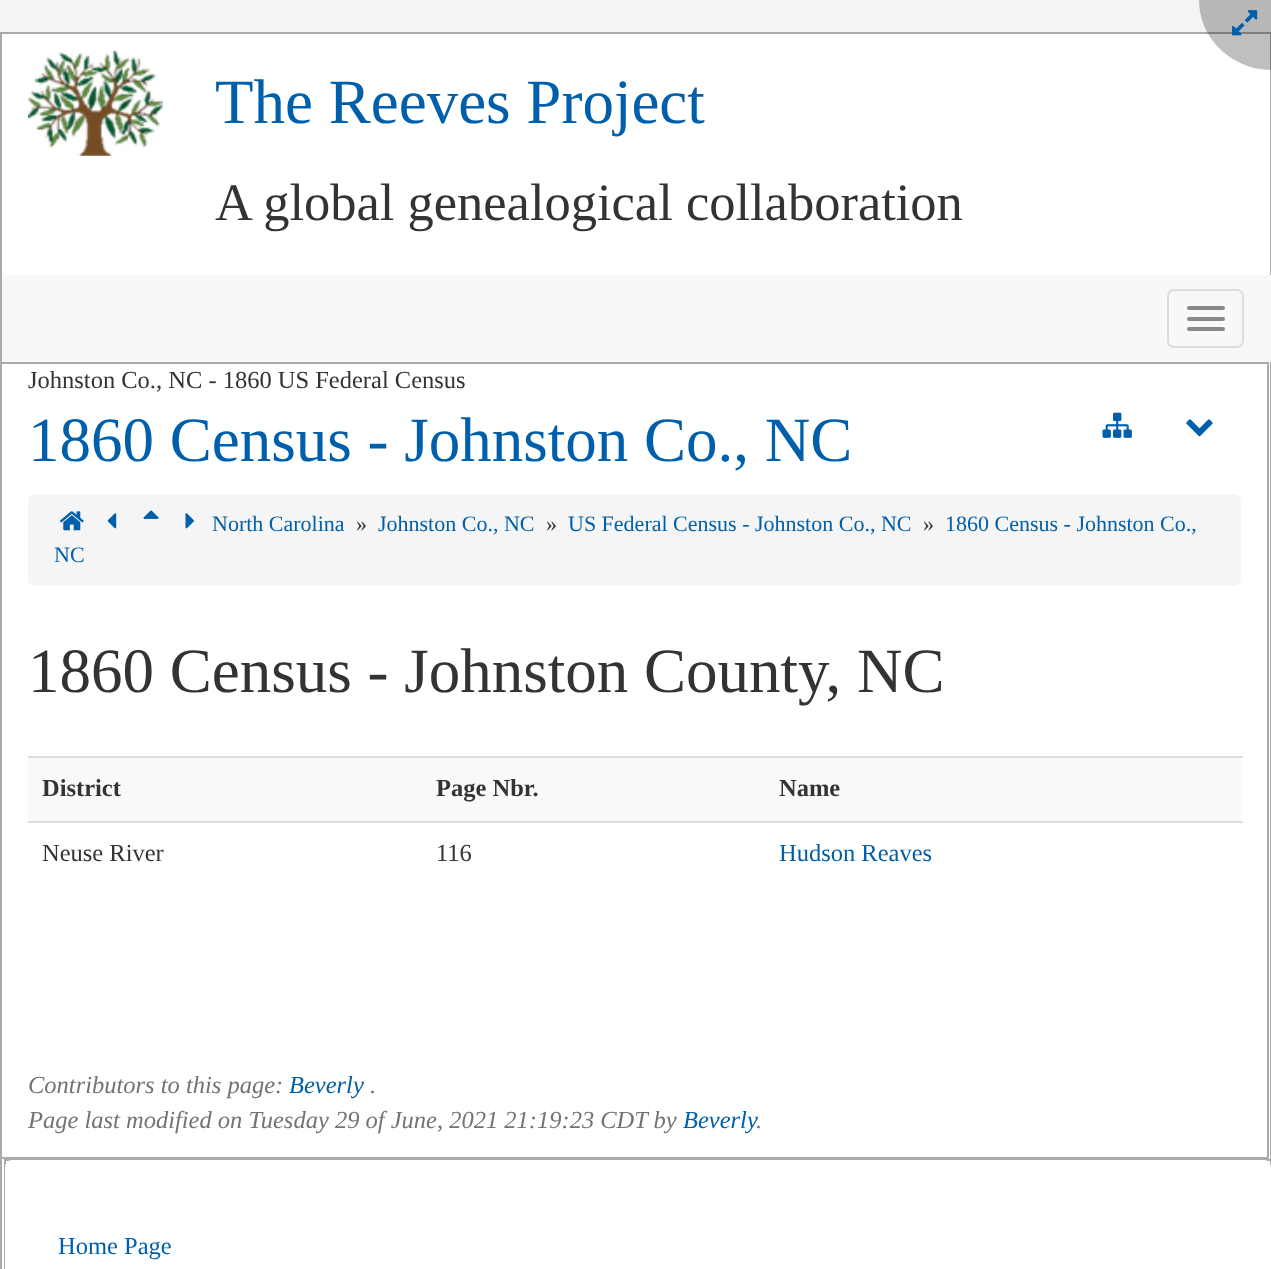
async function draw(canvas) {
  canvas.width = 1271;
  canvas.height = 1269;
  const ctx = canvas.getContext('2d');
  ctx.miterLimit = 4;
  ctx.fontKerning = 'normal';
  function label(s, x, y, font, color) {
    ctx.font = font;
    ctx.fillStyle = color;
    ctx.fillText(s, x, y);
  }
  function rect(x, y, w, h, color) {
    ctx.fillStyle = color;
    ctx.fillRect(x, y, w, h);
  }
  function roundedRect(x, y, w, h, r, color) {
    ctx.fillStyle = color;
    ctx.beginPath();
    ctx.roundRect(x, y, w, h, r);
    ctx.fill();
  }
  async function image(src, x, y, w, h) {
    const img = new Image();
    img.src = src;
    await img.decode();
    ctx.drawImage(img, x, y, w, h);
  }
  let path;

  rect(0, 0, 1271, 1269, '#f4f4f4');
  ctx.fillStyle = '#fff';
  ctx.beginPath();
  ctx.rect(1, 33, 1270, 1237);
  ctx.fill();
  ctx.strokeStyle = '#aaa';
  ctx.lineWidth = 2;
  ctx.stroke();
  ctx.fillStyle = '#00000040';
  path = new Path2D('M1199 0H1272V70C1232 70 1199 39 1199 0Z');
  ctx.fill(path);
  await image('assets/img1.png', 1232, 10, 26, 26);
  await image('assets/img2.png', 28, 50, 135, 106);
  label('The Reeves Project', 215, 123, '63px Liberation Serif', '#005faa');
  label('A global genealogical collaboration', 215, 220, '52.5px Liberation Serif', '#333');
  rect(2, 275, 1269, 87, '#f8f8f8');
  ctx.beginPath();
  ctx.roundRect(1168, 290, 75, 57, 6);
  ctx.strokeStyle = '#ddd';
  ctx.stroke();
  roundedRect(1187, 306, 38, 4, 2, '#888');
  roundedRect(1187, 317, 38, 4, 2, '#888');
  roundedRect(1187, 327, 38, 4, 2, '#888');
  ctx.strokeStyle = '#aaa';
  ctx.strokeRect(1, 363, 1267, 795);
  label('Johnston Co., NC - 1860 US Federal Census', 28, 388, '24.5px Liberation Serif', '#333');
  label('1860 Census - Johnston Co., NC', 28, 461, '63px Liberation Serif', '#005faa');
  await image('assets/img3.png', 1102, 412, 30, 26);
  await image('assets/img4.png', 1186, 419, 27, 18);
  roundedRect(28, 494, 1213, 92, 7, '#f5f5f5');
  await image('assets/img5.png', 59, 511, 25, 20);
  await image('assets/img6.png', 107, 513, 10, 16);
  await image('assets/img7.png', 143, 510, 16, 9);
  await image('assets/img8.png', 185, 513, 9, 16);
  label('North Carolina', 212, 531, '22px Liberation Serif', '#005faa');
  label('»', 356, 531, '22px Liberation Serif', '#333');
  label('Johnston Co., NC', 378, 531, '22px Liberation Serif', '#005faa');
  label('»', 546, 531, '22px Liberation Serif', '#333');
  label('US Federal Census - Johnston Co., NC', 568, 531, '22px Liberation Serif', '#005faa');
  label('»', 923, 531, '22px Liberation Serif', '#333');
  label('1860 Census - Johnston Co.,', 945, 531, '22px Liberation Serif', '#005faa');
  label('NC', 54, 562, '22px Liberation Serif', '#005faa');
  label('1860 Census - Johnston County, NC', 28, 692, '63px Liberation Serif', '#333');
  rect(28, 758, 1213, 63, '#f9f9f9');
  label('District', 42, 796, 'bold 24.5px Liberation Serif', '#333');
  label('Page Nbr.', 436, 796, 'bold 24.5px Liberation Serif', '#333');
  rect(28, 756, 1215, 2, '#ddd');
  label('Name', 779, 796, 'bold 24.5px Liberation Serif', '#333');
  label('Neuse River', 42, 861, '24.5px Liberation Serif', '#333');
  label('116', 436, 861, '24.5px Liberation Serif', '#333');
  rect(28, 821, 1215, 2, '#ddd');
  label('Hudson Reaves', 779, 861, '24.5px Liberation Serif', '#005faa');
  label('Contributors to this page:', 28, 1093, 'italic 24.5px Liberation Serif', '#737373');
  label('Beverly', 289, 1093, 'italic 24.5px Liberation Serif', '#005faa');
  label('.', 370, 1093, 'italic 24.5px Liberation Serif', '#737373');
  label('Page last modified on Tuesday 29 of June, 2021 21:19:23 CDT by', 28, 1128, 'italic 24.5px Liberation Serif', '#737373');
  label('Beverly', 683, 1128, 'italic 24.5px Liberation Serif', '#005faa');
  label('.', 756, 1128, 'italic 24.5px Liberation Serif', '#737373');
  ctx.strokeRect(5, 1160, 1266, 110);
  roundedRect(5, 1160, 1266, 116, 7, '#fff');
  label('Home Page', 58, 1254, '24.5px Liberation Serif', '#005faa');
}

draw(document.querySelector('canvas'));
